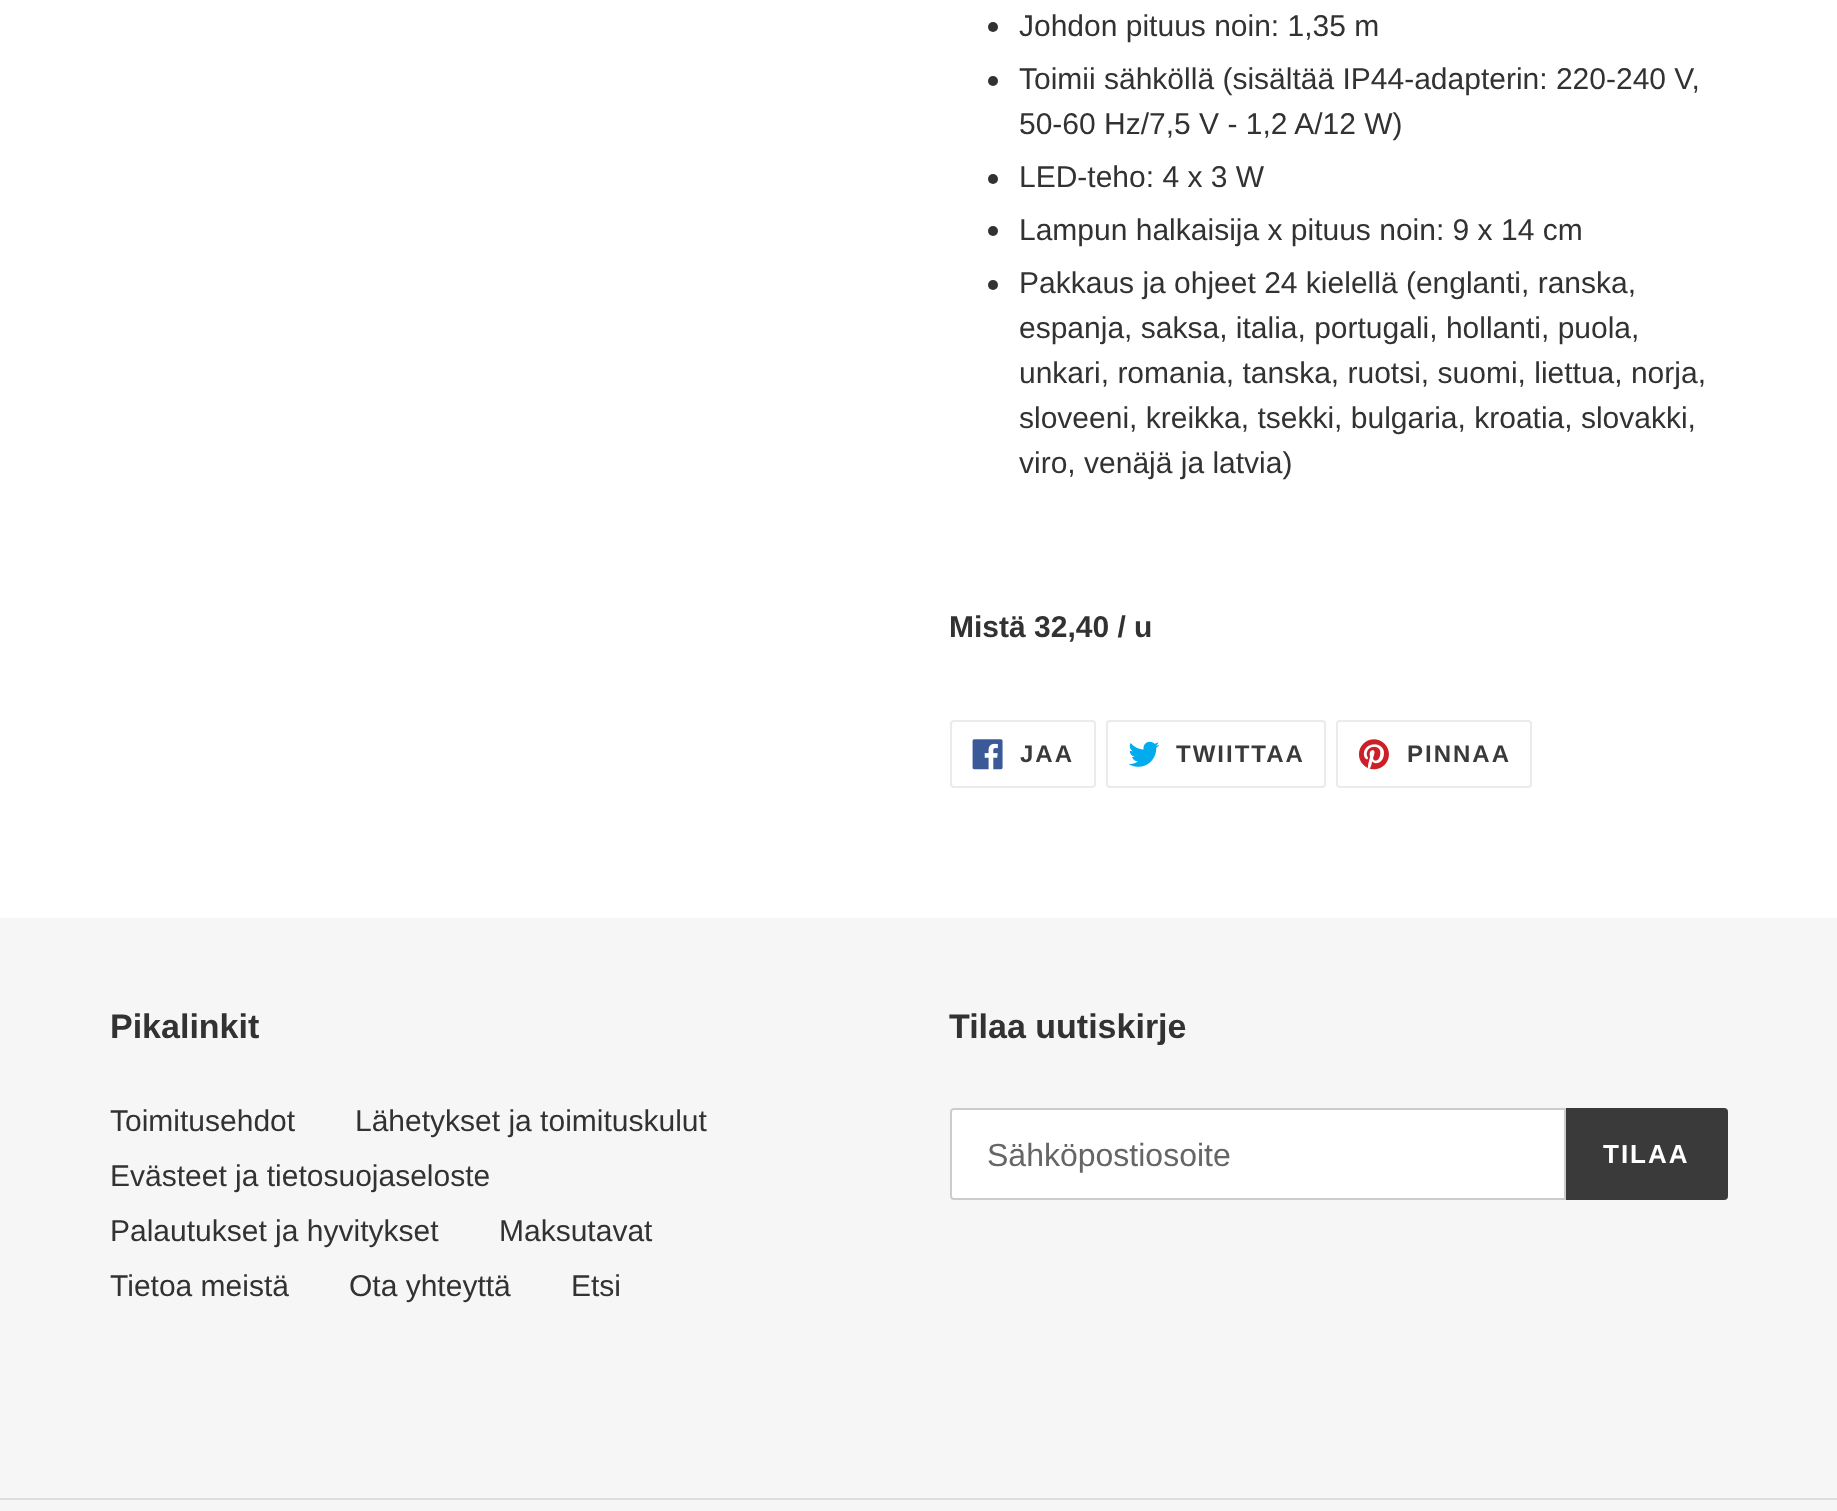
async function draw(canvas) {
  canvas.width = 1837;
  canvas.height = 1511;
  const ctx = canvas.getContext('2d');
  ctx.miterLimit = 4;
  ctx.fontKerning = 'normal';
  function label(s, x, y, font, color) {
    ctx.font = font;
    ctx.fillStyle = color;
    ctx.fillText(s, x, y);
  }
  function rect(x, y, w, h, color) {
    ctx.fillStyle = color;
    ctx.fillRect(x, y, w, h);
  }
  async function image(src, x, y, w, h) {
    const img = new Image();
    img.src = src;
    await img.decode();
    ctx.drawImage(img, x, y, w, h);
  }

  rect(0, 0, 1837, 1511, '#fff');
  ctx.fillStyle = '#333232';
  ctx.beginPath();
  ctx.arc(993, 27, 5, 0, 2 * Math.PI);
  ctx.fill();
  label('Johdon pituus noin: 1,35 m', 1019, 36, '30px Liberation Sans', '#333232');
  ctx.beginPath();
  ctx.arc(993, 81, 5, 0, 2 * Math.PI);
  ctx.fill();
  label('Toimii sähköllä (sisältää IP44-adapterin: 220-240 V,', 1019, 89, '30px Liberation Sans', '#333232');
  label('50-60 Hz/7,5 V - 1,2 A/12 W)', 1019, 134, '30px Liberation Sans', '#333232');
  ctx.beginPath();
  ctx.arc(993, 179, 5, 0, 2 * Math.PI);
  ctx.fill();
  label('LED-teho: 4 x 3 W', 1019, 187, '30px Liberation Sans', '#333232');
  ctx.beginPath();
  ctx.arc(993, 231, 5, 0, 2 * Math.PI);
  ctx.fill();
  label('Lampun halkaisija x pituus noin: 9 x 14 cm', 1019, 240, '30px Liberation Sans', '#333232');
  ctx.beginPath();
  ctx.arc(993, 285, 5, 0, 2 * Math.PI);
  ctx.fill();
  label('Pakkaus ja ohjeet 24 kielellä (englanti, ranska,', 1019, 293, '30px Liberation Sans', '#333232');
  label('espanja, saksa, italia, portugali, hollanti, puola,', 1019, 338, '30px Liberation Sans', '#333232');
  label('unkari, romania, tanska, ruotsi, suomi, liettua, norja,', 1019, 383, '30px Liberation Sans', '#333232');
  label('sloveeni, kreikka, tsekki, bulgaria, kroatia, slovakki,', 1019, 428, '30px Liberation Sans', '#333232');
  label('viro, venäjä ja latvia)', 1019, 473, '30px Liberation Sans', '#333232');
  label('Mistä 32,40 / u', 949, 637, 'bold 30px Liberation Sans', '#333232');
  ctx.beginPath();
  ctx.roundRect(951, 721, 144, 66, 3);
  ctx.strokeStyle = '#ebebeb';
  ctx.lineWidth = 2;
  ctx.stroke();
  await image('assets/img1.png', 972, 739, 31, 31);
  ctx.letterSpacing = '2px';
  label('JAA', 1020, 762, 'bold 24px Liberation Sans', '#3a3a3a');
  ctx.beginPath();
  ctx.roundRect(1107, 721, 218, 66, 3);
  ctx.stroke();
  await image('assets/img2.png', 1128, 741, 32, 26);
  label('TWIITTAA', 1176, 762, 'bold 24px Liberation Sans', '#3a3a3a');
  ctx.beginPath();
  ctx.roundRect(1337, 721, 194, 66, 3);
  ctx.stroke();
  await image('assets/img3.png', 1358, 739, 31, 31);
  label('PINNAA', 1407, 762, 'bold 24px Liberation Sans', '#3a3a3a');
  rect(0, 918, 1837, 593, '#f6f6f6');
  ctx.letterSpacing = '0px';
  label('Pikalinkit', 110, 1038, 'bold 34px Liberation Sans', '#333232');
  label('Toimitusehdot', 110, 1131, '30px Liberation Sans', '#333232');
  label('Lähetykset ja toimituskulut', 355, 1131, '30px Liberation Sans', '#333232');
  label('Evästeet ja tietosuojaseloste', 110, 1186, '30px Liberation Sans', '#333232');
  label('Palautukset ja hyvitykset', 110, 1241, '30px Liberation Sans', '#333232');
  label('Maksutavat', 499, 1241, '30px Liberation Sans', '#333232');
  label('Tietoa meistä', 110, 1296, '30px Liberation Sans', '#333232');
  label('Ota yhteyttä', 349, 1296, '30px Liberation Sans', '#333232');
  label('Etsi', 571, 1296, '30px Liberation Sans', '#333232');
  label('Tilaa uutiskirje', 949, 1038, 'bold 34px Liberation Sans', '#333232');
  ctx.fillStyle = '#fff';
  ctx.beginPath();
  ctx.roundRect(951, 1109, 614, 90, [3, 0, 0, 3]);
  ctx.fill();
  ctx.strokeStyle = '#ccc';
  ctx.stroke();
  label('Sähköpostiosoite', 987, 1166, '32px Liberation Sans', '#666');
  ctx.fillStyle = '#3a3a3a';
  ctx.beginPath();
  ctx.roundRect(1566, 1108, 162, 92, [0, 4, 4, 0]);
  ctx.fill();
  ctx.letterSpacing = '2px';
  label('TILAA', 1603, 1163, 'bold 26px Liberation Sans', '#fff');
  rect(0, 1498, 1837, 2, '#ddd');
}

draw(document.querySelector('canvas'));
